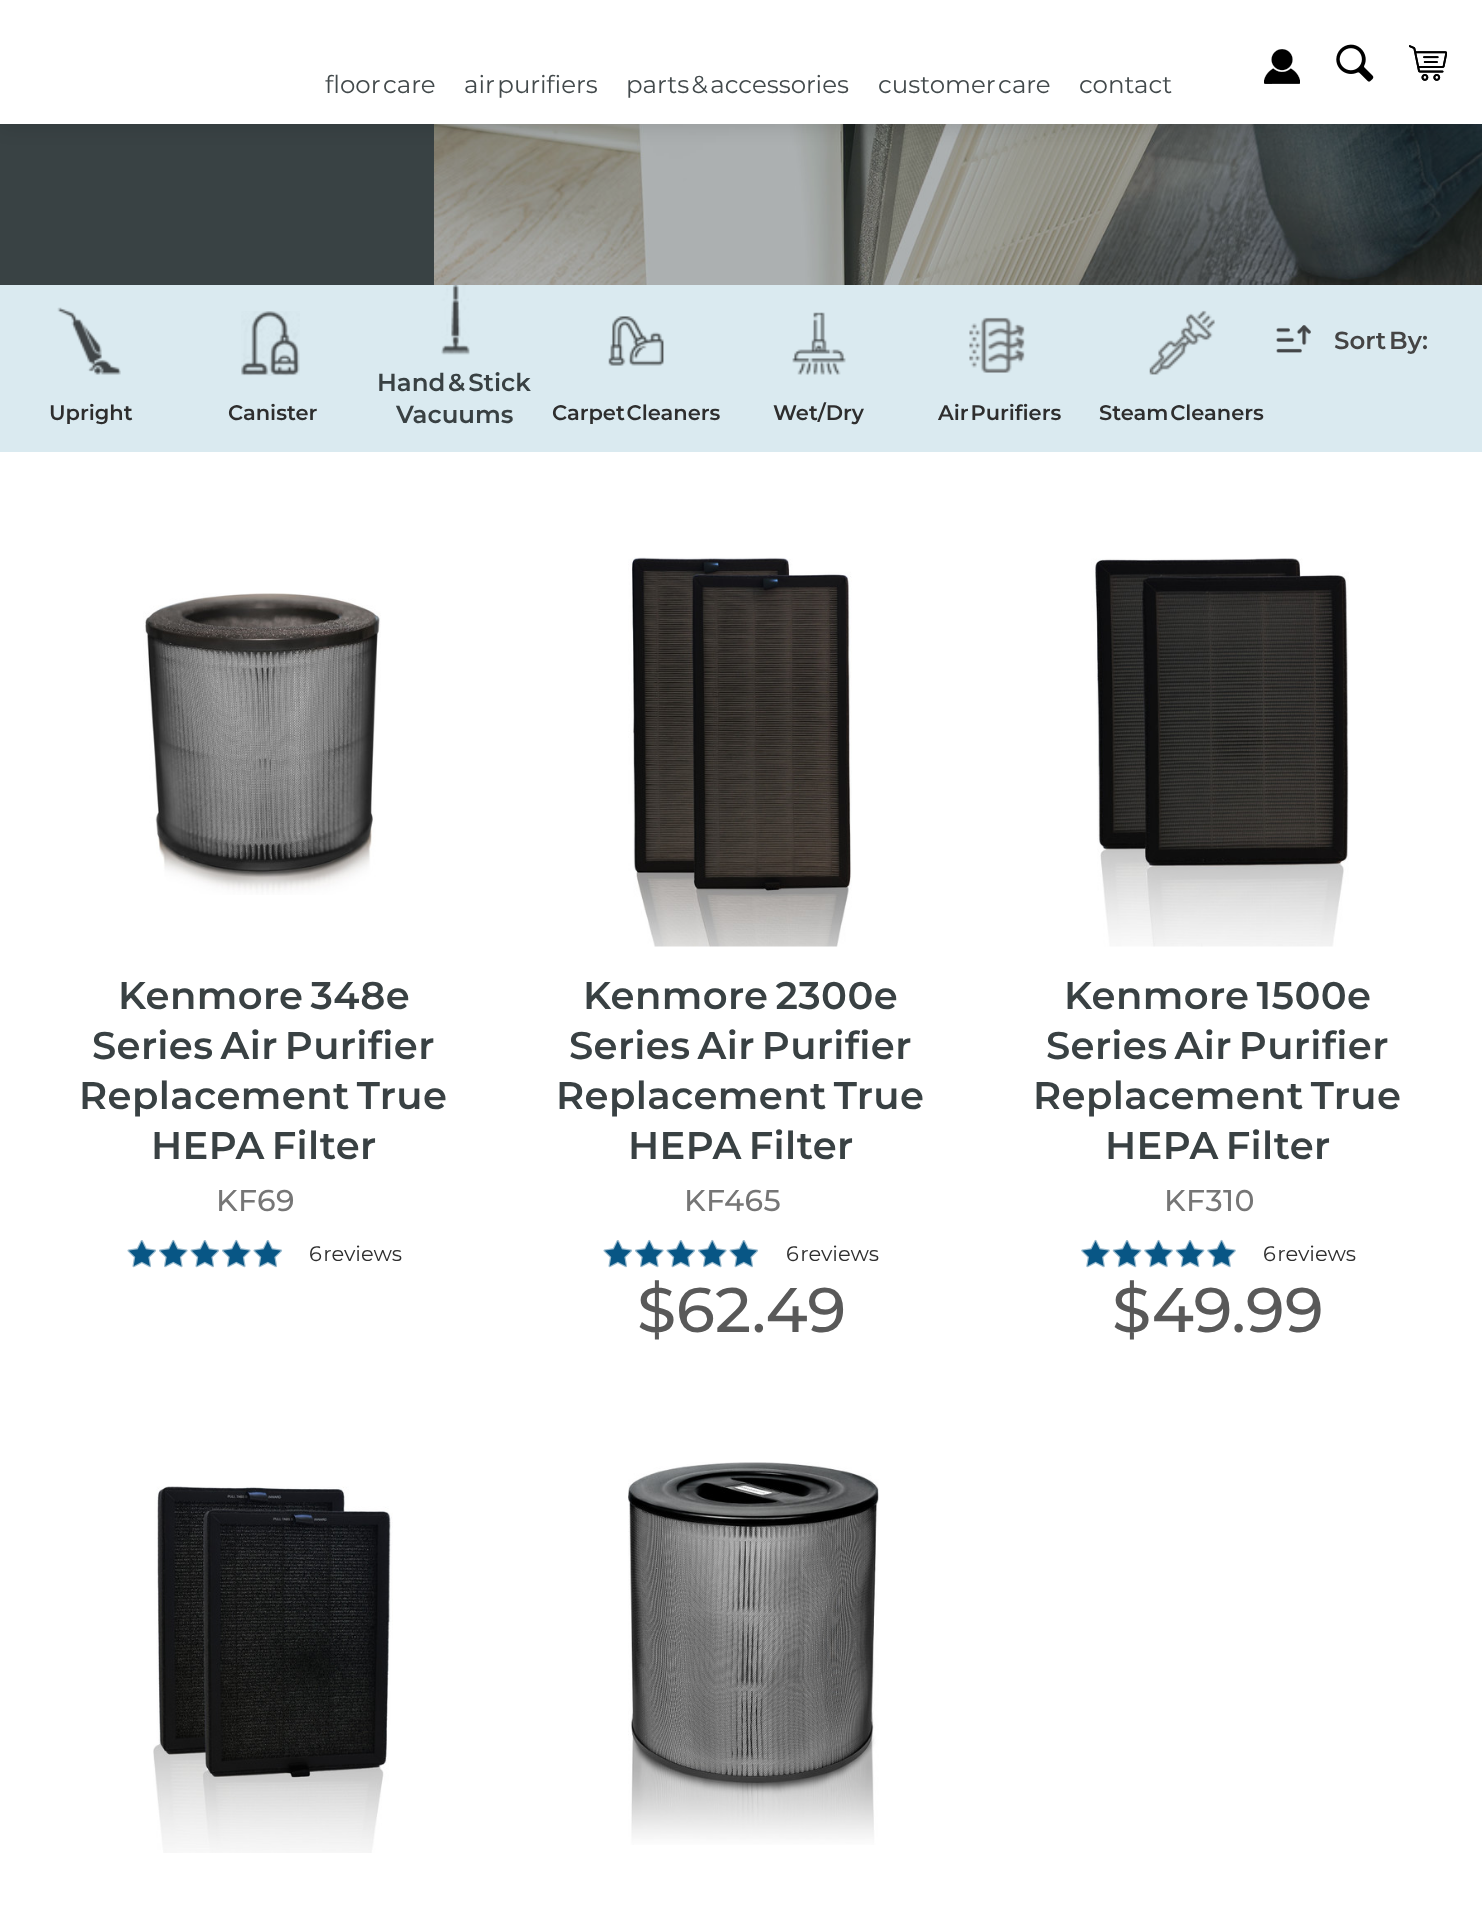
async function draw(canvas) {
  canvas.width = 1482;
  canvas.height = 1908;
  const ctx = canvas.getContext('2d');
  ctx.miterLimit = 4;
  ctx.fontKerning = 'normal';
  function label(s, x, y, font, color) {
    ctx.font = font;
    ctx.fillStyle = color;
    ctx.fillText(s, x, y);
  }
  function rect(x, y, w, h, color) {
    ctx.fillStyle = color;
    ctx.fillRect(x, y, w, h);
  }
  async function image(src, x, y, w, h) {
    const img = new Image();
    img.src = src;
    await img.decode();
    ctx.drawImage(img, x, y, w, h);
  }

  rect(0, 0, 1482, 1908, '#fff');
  rect(0, 124, 1482, 161, '#394244');
  await image('assets/img4.png', 434, 124, 1048, 161);
  ctx.fillStyle = '#0000001a';
  ctx.filter = 'blur(9px)';
  ctx.beginPath();
  ctx.rect(0, 4, 1482, 124);
  ctx.fill();
  ctx.filter = 'none';
  rect(0, 0, 1482, 124, '#fff');
  ctx.wordSpacing = '-4px';
  label('floor care', 325, 93, '24.5px Montserrat', '#434a4c');
  label('air purifiers', 464, 93, '24.5px Montserrat', '#434a4c');
  label('parts & accessories', 626, 93, '24.5px Montserrat', '#434a4c');
  label('customer care', 878, 93, '24.5px Montserrat', '#434a4c');
  ctx.wordSpacing = '0px';
  label('contact', 1079, 93, '24.5px Montserrat', '#434a4c');
  await image('assets/img1.png', 1264, 49, 36, 35);
  await image('assets/img2.png', 1336, 44, 38, 38);
  await image('assets/img3.png', 1409, 45, 38, 36);
  rect(0, 285, 1482, 167, '#daeaf0');
  await image('assets/img5.png', 1276, 325, 35, 28);
  ctx.wordSpacing = '-4px';
  label('Sort By:', 1334, 349, '600 24.5px Montserrat', '#444');
  await image('assets/img6.png', 57, 307, 64, 68);
  ctx.wordSpacing = '0px';
  label('Upright', 49, 420, '600 21px Montserrat', '#2e2e2e');
  await image('assets/img7.png', 241, 311, 59, 65);
  label('Canister', 228, 420, '600 21px Montserrat', '#2e2e2e');
  await image('assets/img8.png', 441, 285, 29, 70);
  ctx.wordSpacing = '-4px';
  label('Hand & Stick', 377, 391, '600 24.5px Montserrat', '#394143');
  ctx.wordSpacing = '0px';
  label('Vacuums', 396, 423, '600 24.5px Montserrat', '#394143');
  await image('assets/img9.png', 608, 316, 56, 50);
  ctx.wordSpacing = '-4px';
  label('Carpet Cleaners', 552, 420, '600 21px Montserrat', '#2e2e2e');
  await image('assets/img10.png', 792, 312, 54, 63);
  ctx.wordSpacing = '0px';
  label('Wet/Dry', 773, 420, '600 21px Montserrat', '#2e2e2e');
  await image('assets/img11.png', 969, 317, 56, 56);
  ctx.wordSpacing = '-4px';
  label('Air Purifiers', 938, 420, '600 21px Montserrat', '#2e2e2e');
  await image('assets/img12.png', 1149, 310, 66, 65);
  label('Steam Cleaners', 1099, 420, '600 21px Montserrat', '#2e2e2e');
  await image('assets/img13.png', 143, 593, 238, 302);
  ctx.letterSpacing = '0.4px';
  label('Kenmore 348e', 118, 1009, '600 38.5px Montserrat', '#394143');
  label('Series Air Purifier', 92, 1059, '600 38.5px Montserrat', '#394143');
  label('Replacement True', 79, 1109, '600 38.5px Montserrat', '#394143');
  label('HEPA Filter', 151, 1159, '600 38.5px Montserrat', '#394143');
  ctx.wordSpacing = '0px';
  label('KF69', 216, 1211, '500 30px Montserrat', '#767676');
  await image('assets/img14.png', 127, 1240, 30, 28);
  await image('assets/img15.png', 159, 1239, 29, 29);
  await image('assets/img14.png', 190, 1240, 30, 28);
  await image('assets/img15.png', 222, 1239, 29, 29);
  await image('assets/img14.png', 253, 1240, 30, 28);
  ctx.letterSpacing = '0px';
  ctx.wordSpacing = '-4px';
  label('6 reviews', 309, 1261, '21px Montserrat', '#2e2e2e');
  await image('assets/img16.png', 628, 557, 224, 390);
  ctx.letterSpacing = '0.4px';
  label('Kenmore 2300e', 583, 1009, '600 38.5px Montserrat', '#394143');
  label('Series Air Purifier', 569, 1059, '600 38.5px Montserrat', '#394143');
  label('Replacement True', 556, 1109, '600 38.5px Montserrat', '#394143');
  label('HEPA Filter', 628, 1159, '600 38.5px Montserrat', '#394143');
  ctx.wordSpacing = '0px';
  label('KF465', 684, 1211, '500 30px Montserrat', '#767676');
  await image('assets/img14.png', 603, 1240, 30, 28);
  await image('assets/img15.png', 635, 1239, 29, 29);
  await image('assets/img14.png', 666, 1240, 30, 28);
  await image('assets/img15.png', 698, 1239, 29, 29);
  await image('assets/img14.png', 729, 1240, 30, 28);
  ctx.letterSpacing = '0px';
  ctx.wordSpacing = '-4px';
  label('6 reviews', 786, 1261, '21px Montserrat', '#2e2e2e');
  ctx.wordSpacing = '0px';
  label('$62.49', 637, 1332, '500 63px Montserrat', '#595959');
  await image('assets/img17.png', 1091, 558, 258, 389);
  ctx.letterSpacing = '0.4px';
  ctx.wordSpacing = '-4px';
  label('Kenmore 1500e', 1064, 1009, '600 38.5px Montserrat', '#394143');
  label('Series Air Purifier', 1046, 1059, '600 38.5px Montserrat', '#394143');
  label('Replacement True', 1033, 1109, '600 38.5px Montserrat', '#394143');
  label('HEPA Filter', 1105, 1159, '600 38.5px Montserrat', '#394143');
  ctx.wordSpacing = '0px';
  label('KF310', 1164, 1211, '500 30px Montserrat', '#767676');
  await image('assets/img18.png', 1081, 1239, 29, 29);
  await image('assets/img19.png', 1112, 1240, 30, 28);
  await image('assets/img18.png', 1144, 1239, 29, 29);
  await image('assets/img19.png', 1175, 1240, 30, 28);
  await image('assets/img18.png', 1207, 1239, 29, 29);
  ctx.letterSpacing = '0px';
  ctx.wordSpacing = '-4px';
  label('6 reviews', 1263, 1261, '21px Montserrat', '#2e2e2e');
  ctx.wordSpacing = '0px';
  label('$49.99', 1112, 1332, '500 63px Montserrat', '#595959');
  await image('assets/img20.png', 153, 1486, 240, 367);
  await image('assets/img21.png', 628, 1462, 251, 383);
}

draw(document.querySelector('canvas'));
